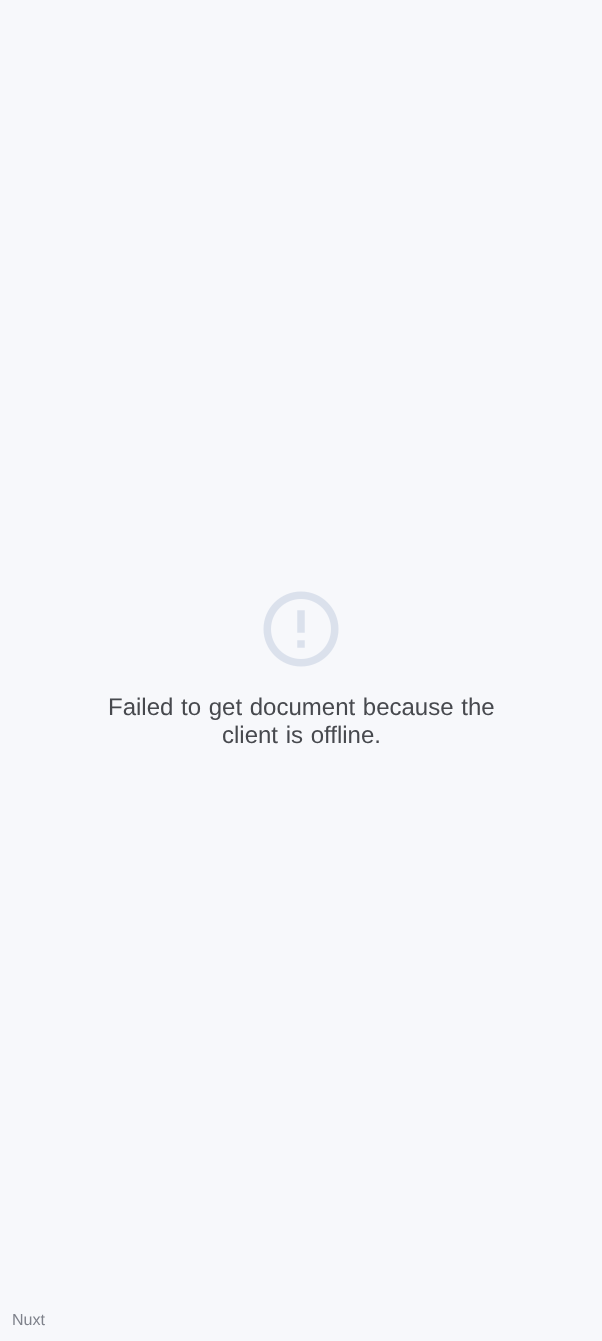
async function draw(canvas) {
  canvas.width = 602;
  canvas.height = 1341;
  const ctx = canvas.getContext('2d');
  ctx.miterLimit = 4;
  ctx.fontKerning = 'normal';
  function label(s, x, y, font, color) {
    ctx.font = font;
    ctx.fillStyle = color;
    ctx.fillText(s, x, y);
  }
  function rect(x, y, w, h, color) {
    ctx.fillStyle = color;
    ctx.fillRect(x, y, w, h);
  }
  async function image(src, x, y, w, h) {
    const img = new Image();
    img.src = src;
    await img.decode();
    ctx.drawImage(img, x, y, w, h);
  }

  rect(0, 0, 602, 1341, '#f7f8fb');
  await image('assets/img1.png', 263, 591, 76, 76);
  ctx.wordSpacing = '1px';
  label('Failed to get document because the', 108, 715, '24px Liberation Sans', '#47494e');
  label('client is offline.', 222, 743, '24px Liberation Sans', '#47494e');
  ctx.wordSpacing = '0px';
  label('Nuxt', 12, 1325, '16px Liberation Sans', '#7f828b');
}

draw(document.querySelector('canvas'));
